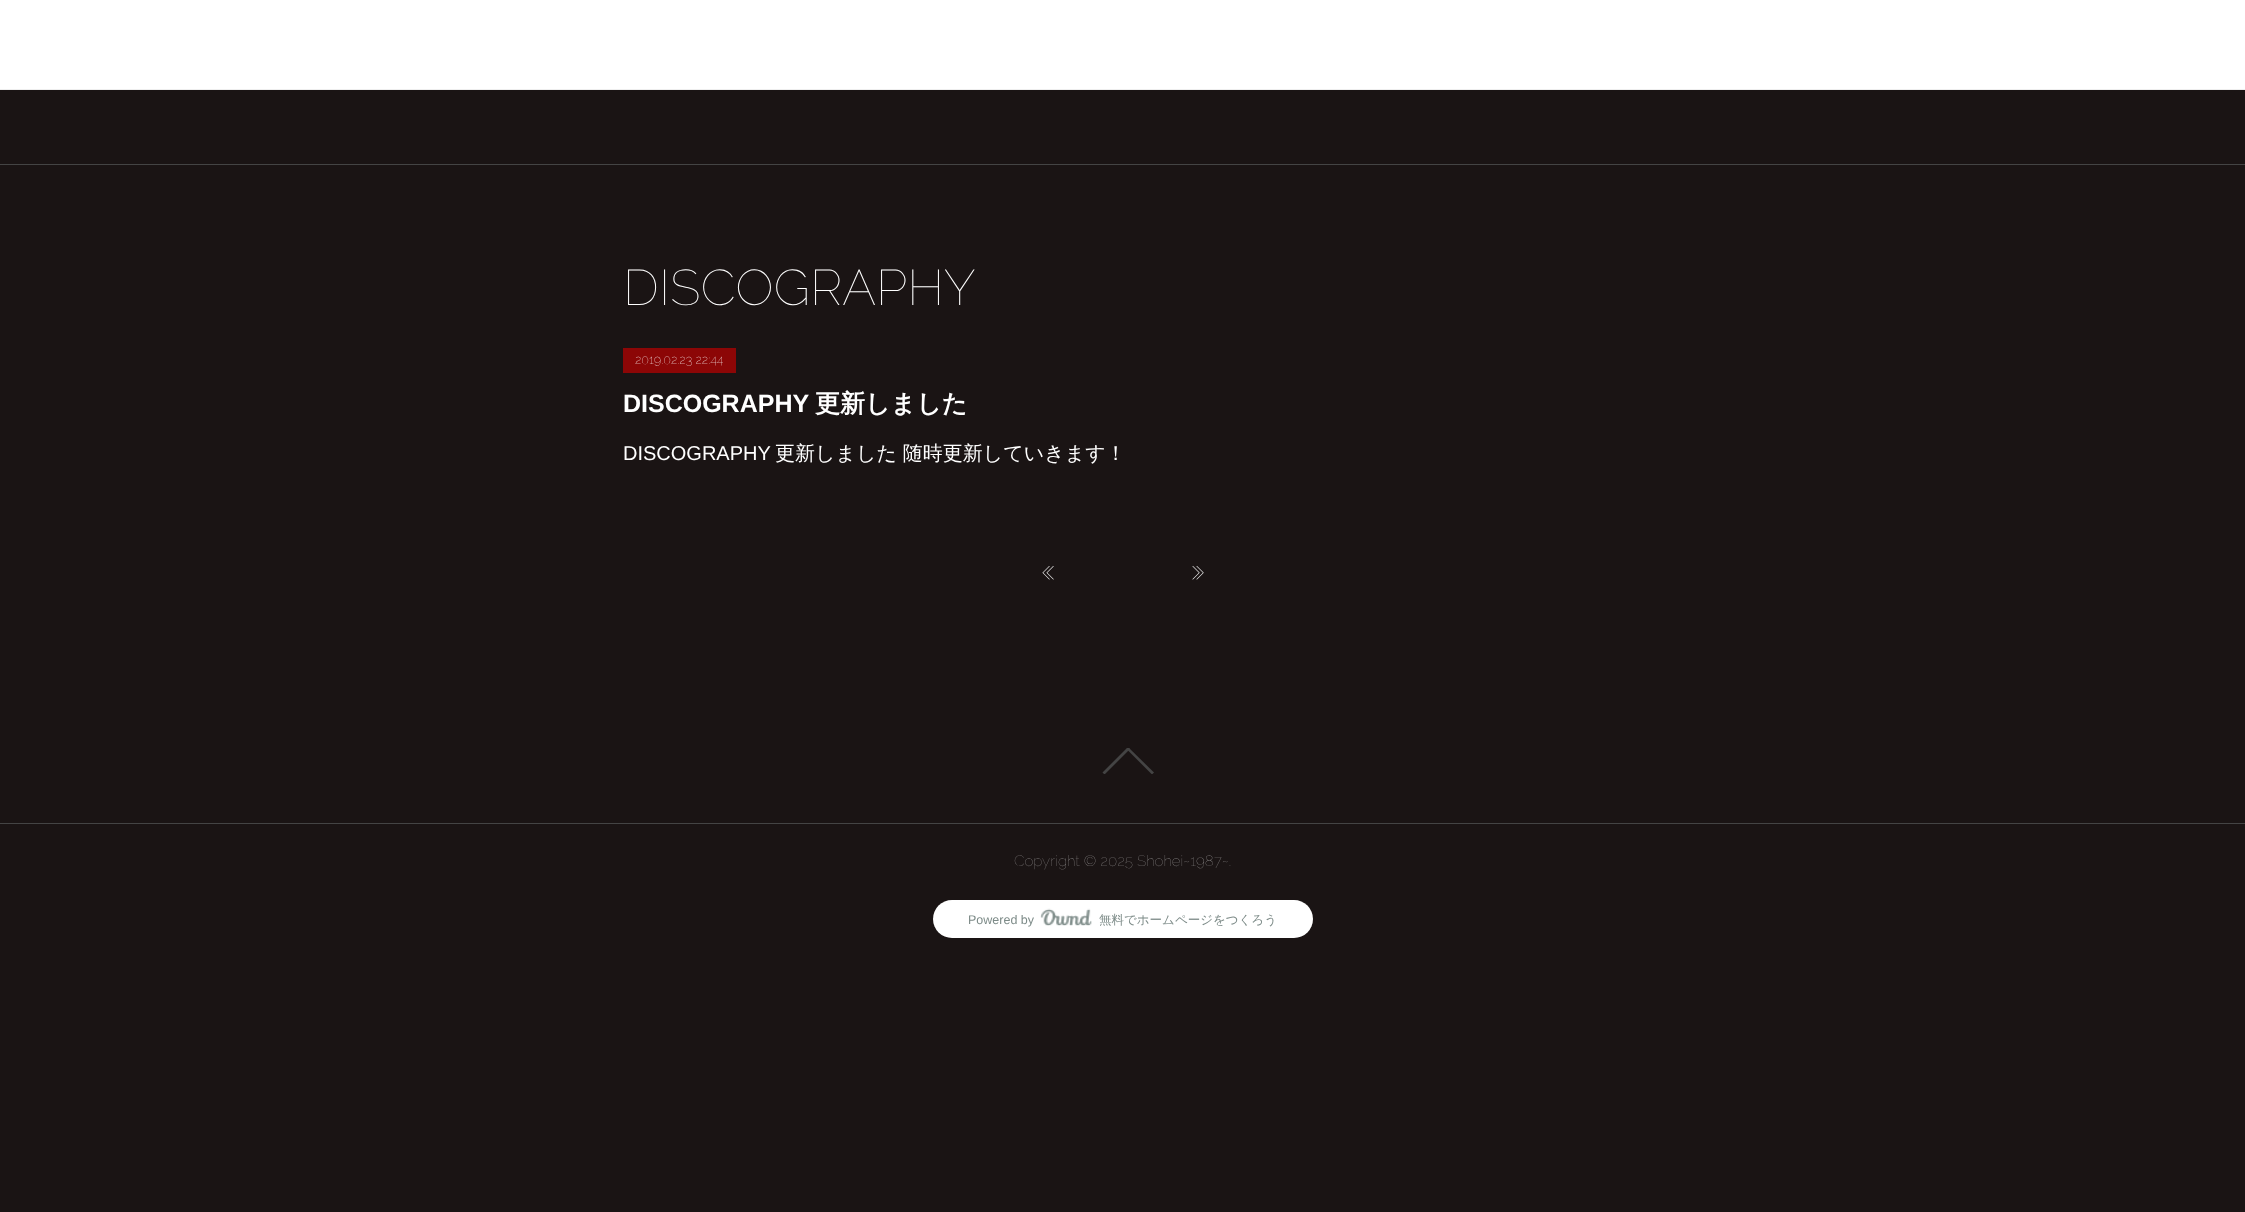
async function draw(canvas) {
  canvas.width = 2245;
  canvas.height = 1212;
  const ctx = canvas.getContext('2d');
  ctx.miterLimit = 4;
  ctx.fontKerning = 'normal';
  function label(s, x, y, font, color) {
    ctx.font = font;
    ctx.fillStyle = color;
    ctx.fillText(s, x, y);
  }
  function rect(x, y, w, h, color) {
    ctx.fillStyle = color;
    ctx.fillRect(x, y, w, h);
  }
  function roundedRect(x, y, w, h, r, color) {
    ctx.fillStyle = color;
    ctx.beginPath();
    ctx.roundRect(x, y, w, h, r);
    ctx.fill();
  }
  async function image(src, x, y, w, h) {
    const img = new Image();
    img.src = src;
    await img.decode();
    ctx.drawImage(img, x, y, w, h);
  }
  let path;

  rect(0, 0, 2245, 1212, '#1a1414');
  rect(0, 0, 2245, 89, '#fff');
  rect(0, 89, 2245, 1, '#eee');
  rect(0, 164, 2245, 1, '#444');
  label('DISCOGRAPHY', 623, 305, '100 50px Raleway', '#fff');
  rect(623, 348, 113, 25, '#8c0606');
  label('2019.02.23 22:44', 635, 364, '100 12.5px Raleway', '#fff');
  label('DISCOGRAPHY', 623, 412, 'bold 25px Liberation Sans', '#fff');
  label('更新しました', 815, 412, 'bold 25px WenQuanYi Zen Hei', '#fff');
  label('DISCOGRAPHY', 623, 460, '20px Liberation Sans', '#fff');
  label('更新しました 随時更新していきます！', 775, 460, '500 20px WenQuanYi Zen Hei', '#fff');
  await image('assets/img1.png', 1042, 566, 12, 14);
  await image('assets/img2.png', 1192, 566, 12, 14);
  ctx.save();
  ctx.beginPath();
  ctx.rect(0, 748, 2245, 26);
  ctx.clip();
  ctx.fillStyle = '#444';
  path = new Path2D('M1102.5 772.5L1128 747L1130 749L1104.5 774.5Z');
  ctx.fill(path);
  path = new Path2D('M1126.5 749L1128 747L1154 772.5L1152 774.5Z');
  ctx.fill(path);
  ctx.restore();
  rect(0, 823, 2245, 1, '#444');
  label('Copyright © 2025 Shohei~1987~.', 1014, 866, '100 15px Raleway', '#8d8a8a');
  roundedRect(933, 900, 380, 38, 19, '#fff');
  label('Powered by', 968, 924, '12.5px Liberation Sans', '#7d8b88');
  await image('assets/img3.png', 1040, 908, 52, 18);
  label('無料でホームページをつくろう', 1099, 924, '500 12.5px WenQuanYi Zen Hei', '#7d8b88');
}

draw(document.querySelector('canvas'));
